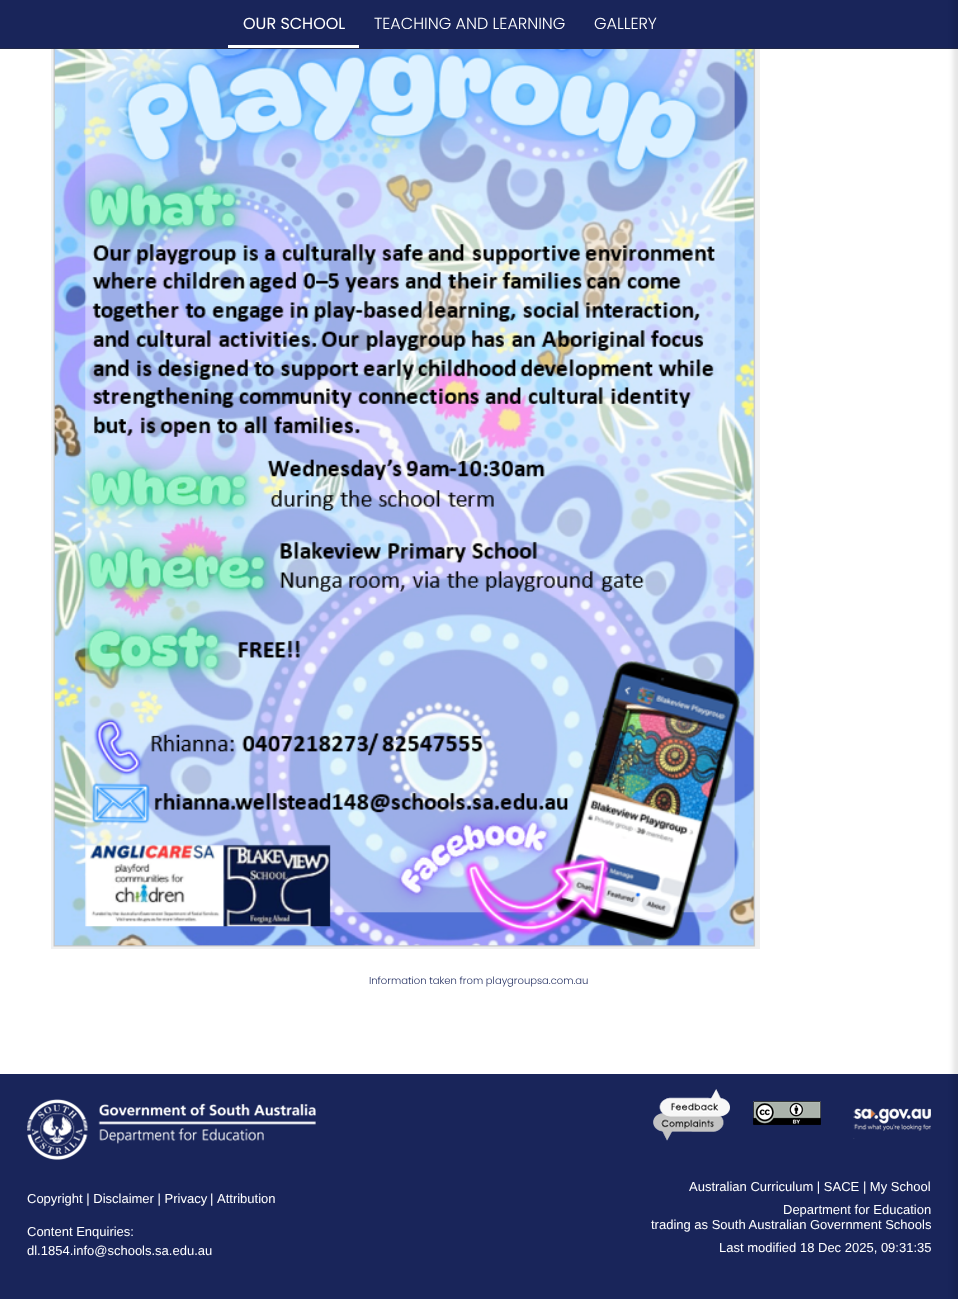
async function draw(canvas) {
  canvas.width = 958;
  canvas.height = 1299;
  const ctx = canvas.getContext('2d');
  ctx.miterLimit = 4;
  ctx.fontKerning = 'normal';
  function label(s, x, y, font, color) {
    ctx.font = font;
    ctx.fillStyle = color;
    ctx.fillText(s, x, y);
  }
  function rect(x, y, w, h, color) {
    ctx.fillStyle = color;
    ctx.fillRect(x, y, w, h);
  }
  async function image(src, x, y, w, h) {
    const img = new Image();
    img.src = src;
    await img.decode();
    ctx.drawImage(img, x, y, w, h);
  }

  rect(0, 0, 958, 1299, '#fff');
  rect(0, 0, 958, 48, '#19255a');
  rect(0, 48, 958, 1, '#222948');
  rect(228, 45, 131, 3, '#fff');
  label('OUR SCHOOL', 243, 29, '16px Poppins', '#fff');
  label('TEACHING AND LEARNING', 374, 29, '300 16px Poppins', '#fff');
  label('GALLERY', 594, 29, '300 16px Poppins', '#fff');
  rect(0, 1074, 958, 225, '#19255a');
  ctx.fillStyle = '#0000001a';
  ctx.filter = 'blur(2.5px)';
  ctx.beginPath();
  ctx.rect(953, -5, 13, 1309);
  ctx.fill();
  ctx.filter = 'none';
  await image('assets/img1.png', 51, 49, 709, 900);
  label('Information taken from playgroupsa.com.au', 369, 984, '300 10px Poppins', '#19255a');
  await image('assets/img2.png', 27, 1099, 289, 61);
  label('Copyright | Disclaimer | Privacy', 27, 1203, '13px Liberation Sans', '#fff');
  label('|', 210, 1203, '13px Liberation Sans', '#fff');
  label('Attribution', 217, 1203, '13px Liberation Sans', '#fff');
  label('Content Enquiries:', 27, 1236, '13px Liberation Sans', '#fff');
  label('dl.1854.info@schools.sa.edu.au', 27, 1255, '13px Liberation Sans', '#fff');
  await image('assets/img3.png', 653, 1089, 77, 52);
  await image('assets/img4.png', 753, 1101, 68, 24);
  await image('assets/img5.png', 853, 1108, 78, 31);
  label('Australian Curriculum | SACE | My School', 689, 1191, '13px Liberation Sans', '#fff');
  label('Department for Education', 783, 1214, '13px Liberation Sans', '#fff');
  label('trading as South Australian Government Schools', 651, 1229, '13px Liberation Sans', '#fff');
  label('Last modified 18 Dec 2025, 09:31:35', 719, 1252, '13px Liberation Sans', '#fff');
}

draw(document.querySelector('canvas'));
